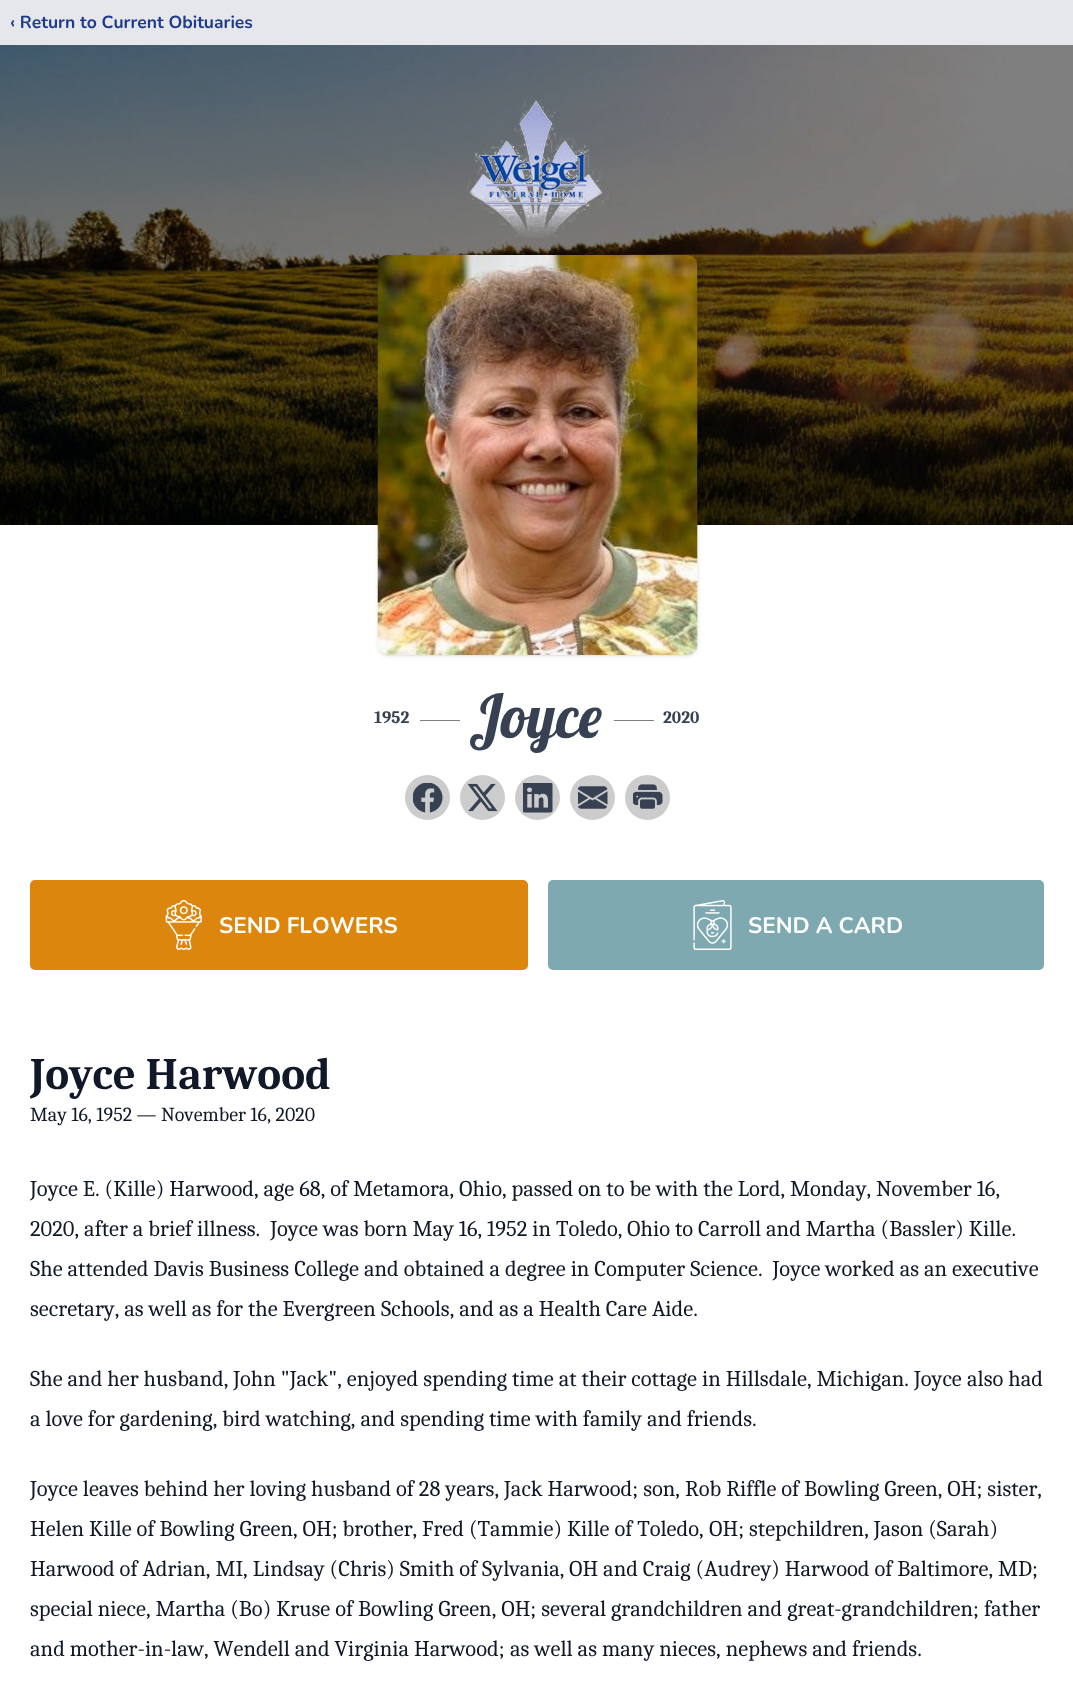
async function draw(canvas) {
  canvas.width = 1073;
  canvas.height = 1699;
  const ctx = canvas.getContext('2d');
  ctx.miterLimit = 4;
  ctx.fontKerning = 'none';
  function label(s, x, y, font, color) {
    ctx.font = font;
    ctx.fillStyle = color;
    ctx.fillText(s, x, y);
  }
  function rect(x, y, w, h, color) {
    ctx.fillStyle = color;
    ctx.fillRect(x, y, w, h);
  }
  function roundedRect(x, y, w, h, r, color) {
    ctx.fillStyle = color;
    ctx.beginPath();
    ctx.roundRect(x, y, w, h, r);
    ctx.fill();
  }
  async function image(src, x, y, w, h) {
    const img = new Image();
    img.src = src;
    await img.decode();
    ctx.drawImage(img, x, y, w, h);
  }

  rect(0, 0, 1073, 1699, '#fff');
  rect(0, 0, 1073, 45, '#e5e7eb');
  label('‹ Return to Current Obituaries', 10, 28, 'bold 17.5px Nunito', '#1e3a8a');
  await image('assets/img1.png', 0, 45, 1073, 480);
  await image('assets/img2.png', 467, 100, 142, 138);
  ctx.fillStyle = '#0000001a';
  ctx.filter = 'blur(1px)';
  ctx.beginPath();
  ctx.roundRect(379, 258, 317, 397, 9);
  ctx.fill();
  ctx.filter = 'none';
  ctx.filter = 'blur(2px)';
  ctx.beginPath();
  ctx.roundRect(378, 256, 320, 400, 10);
  ctx.fill();
  ctx.filter = 'none';
  await image('assets/img3.png', 377, 255, 321, 400);
  label('1952', 374, 723, 'bold 17.5px Caladea', '#374151');
  rect(420, 720, 40, 1, '#808080');
  label('Joyce', 469, 738, '60px Lobster', '#374151');
  rect(614, 720, 40, 1, '#808080');
  label('2020', 663, 723, 'bold 17.5px Caladea', '#374151');
  ctx.fillStyle = '#ccc';
  ctx.beginPath();
  ctx.arc(427.5, 797.5, 22.5, 0, 2 * Math.PI);
  ctx.fill();
  await image('assets/img4.png', 413, 783, 30, 30);
  ctx.beginPath();
  ctx.arc(482.5, 797.5, 22.5, 0, 2 * Math.PI);
  ctx.fill();
  await image('assets/img5.png', 468, 783, 30, 29);
  ctx.beginPath();
  ctx.arc(537.5, 797.5, 22.5, 0, 2 * Math.PI);
  ctx.fill();
  await image('assets/img6.png', 523, 783, 30, 30);
  ctx.beginPath();
  ctx.arc(592.5, 797.5, 22.5, 0, 2 * Math.PI);
  ctx.fill();
  await image('assets/img7.png', 578, 786, 30, 23);
  ctx.beginPath();
  ctx.arc(647.5, 797.5, 22.5, 0, 2 * Math.PI);
  ctx.fill();
  await image('assets/img8.png', 633, 784, 30, 25);
  roundedRect(30, 880, 498, 90, 5, '#dc860d');
  await image('assets/img9.png', 165, 900, 37, 50);
  label('SEND FLOWERS', 219, 933, 'bold 22.5px Nunito', '#fff');
  roundedRect(548, 880, 496, 90, 5, '#7ea9b0');
  await image('assets/img10.png', 693, 900, 39, 50);
  label('SEND A CARD', 748, 933, 'bold 22.5px Nunito', '#fff');
  label('Joyce Harwood', 30, 1089, 'bold 45px Caladea', '#111827');
  label('May 16, 1952 — November 16, 2020', 30, 1121, '20px Caladea', '#111827');
  label('Joyce E. (Kille) Harwood, age 68, of Metamora,', 30, 1196, '22.5px Caladea', '#111827');
  label('Ohio, passed on to be with the Lord, Monday,', 459, 1196, '22.5px Caladea', '#111827');
  label('November 16,', 876, 1196, '22.5px Caladea', '#111827');
  label('2020, after a brief illness.  Joyce was born May 16, 1952 in Toledo,', 30, 1236, '22.5px Caladea', '#111827');
  label('Ohio to Carroll and Martha (Bassler) Kille.', 627, 1236, '22.5px Caladea', '#111827');
  label('She attended Davis Business College and obtained a degree in Computer Science.  Joyce worked as an executive', 30, 1276, '22.5px Caladea', '#111827');
  label('secretary, as well as for the Evergreen', 30, 1316, '22.5px Caladea', '#111827');
  label('Schools, and as a Health Care Aide.', 381, 1316, '22.5px Caladea', '#111827');
  label('She and her husband, John "Jack", enjoyed spending time at their cottage in Hillsdale, Michigan. Joyce', 30, 1386, '22.5px Caladea', '#111827');
  label('also had', 967, 1386, '22.5px Caladea', '#111827');
  label('a love for gardening, bird watching, and spending time with family', 30, 1426, '22.5px Caladea', '#111827');
  label('and friends.', 647, 1426, '22.5px Caladea', '#111827');
  label('Joyce leaves behind her loving husband of 28 years, Jack Harwood; son,', 30, 1496, '22.5px Caladea', '#111827');
  label('Rob Riffle of Bowling Green, OH; sister,', 685, 1496, '22.5px Caladea', '#111827');
  label('Helen Kille of Bowling Green, OH; brother,', 30, 1536, '22.5px Caladea', '#111827');
  label('Fred (Tammie) Kille of Toledo,', 422, 1536, '22.5px Caladea', '#111827');
  label('OH; stepchildren, Jason (Sarah)', 709, 1536, '22.5px Caladea', '#111827');
  label('Harwood of Adrian, MI, Lindsay (Chris) Smith of Sylvania,', 30, 1576, '22.5px Caladea', '#111827');
  label('OH and Craig (Audrey) Harwood of Baltimore, MD;', 569, 1576, '22.5px Caladea', '#111827');
  label('special niece, Martha (Bo) Kruse of Bowling Green, OH; several grandchildren and great-grandchildren;', 30, 1616, '22.5px Caladea', '#111827');
  label('father', 984, 1616, '22.5px Caladea', '#111827');
  label('and mother-in-law, Wendell and Virginia Harwood;', 30, 1656, '22.5px Caladea', '#111827');
  label('as well as many nieces, nephews and friends.', 510, 1656, '22.5px Caladea', '#111827');
}

draw(document.querySelector('canvas'));
